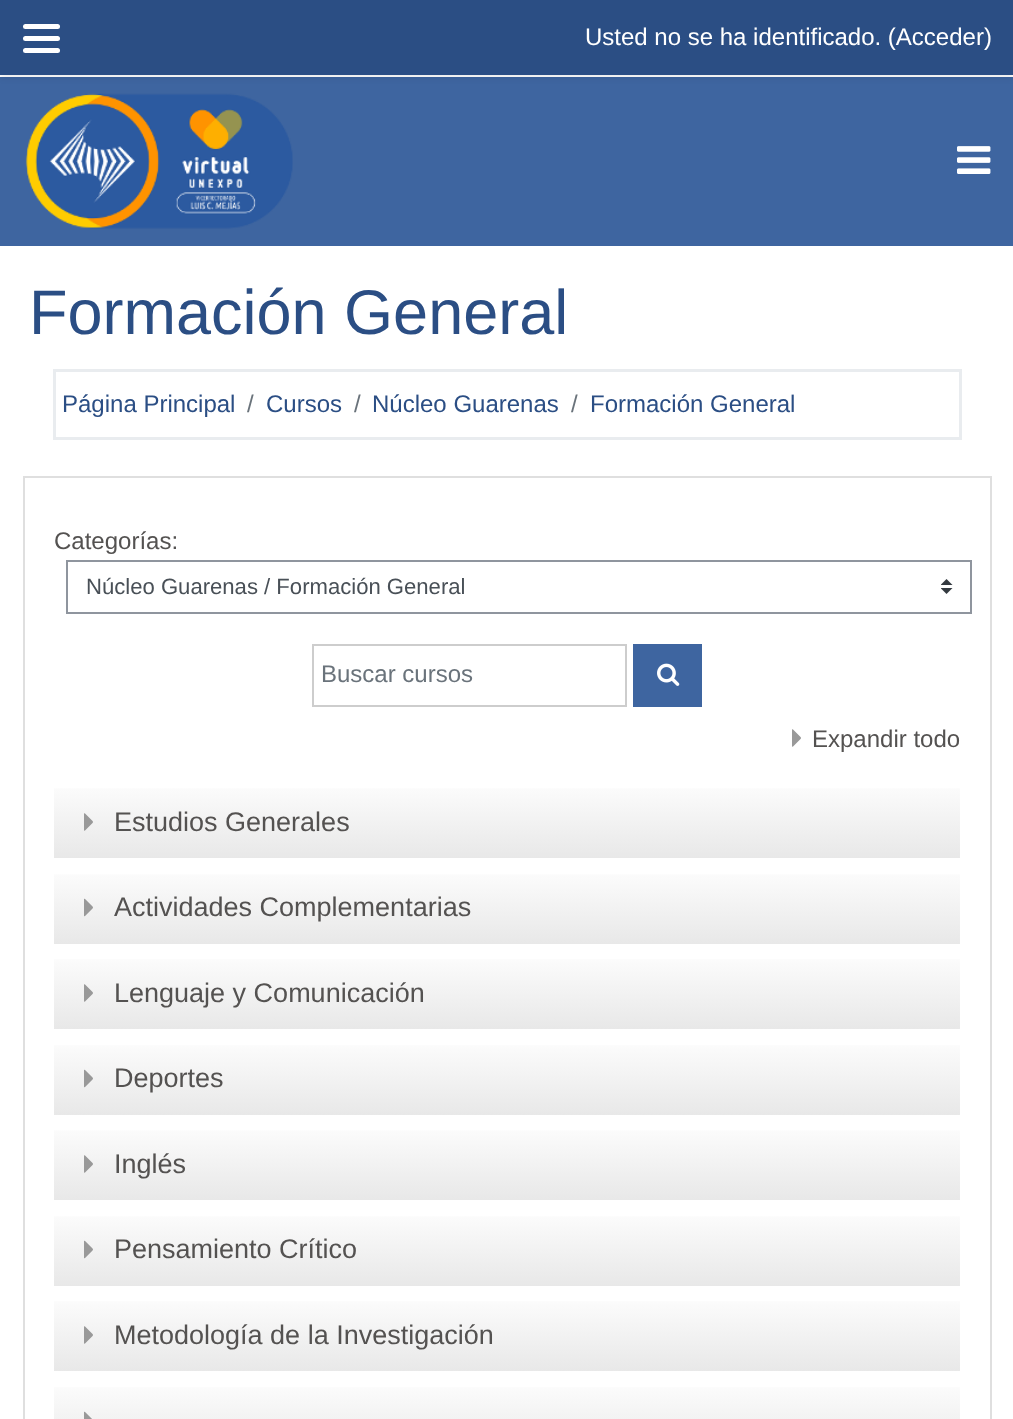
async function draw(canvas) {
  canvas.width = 1013;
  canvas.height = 1419;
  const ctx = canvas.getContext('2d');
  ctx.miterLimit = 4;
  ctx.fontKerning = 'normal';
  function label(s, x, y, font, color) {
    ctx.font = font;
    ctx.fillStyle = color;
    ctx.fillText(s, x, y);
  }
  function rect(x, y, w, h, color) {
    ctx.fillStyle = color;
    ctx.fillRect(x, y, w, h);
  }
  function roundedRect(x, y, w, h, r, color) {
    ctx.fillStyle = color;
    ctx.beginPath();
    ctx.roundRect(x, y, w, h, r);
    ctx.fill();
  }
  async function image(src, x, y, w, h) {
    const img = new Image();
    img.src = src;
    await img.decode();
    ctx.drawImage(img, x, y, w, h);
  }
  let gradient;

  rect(0, 0, 1013, 1419, '#fff');
  rect(0, 77, 1013, 169, '#3e65a0');
  ctx.fillStyle = '#00000014';
  ctx.filter = 'blur(3px)';
  ctx.beginPath();
  ctx.rect(0, 3, 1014, 75);
  ctx.fill();
  ctx.filter = 'none';
  rect(0, 0, 1013, 75, '#2b4e84');
  roundedRect(23, 24, 37, 5, 2.5, '#fff');
  roundedRect(23, 36, 37, 5, 2.5, '#fff');
  roundedRect(23, 48, 37, 5, 2.5, '#fff');
  label('Usted no se ha identificado. (Acceder)', 585, 45, '24px Liberation Sans', '#fff');
  await image('assets/img1.png', 25, 93, 268, 136);
  await image('assets/img2.png', 957, 146, 34, 28);
  label('Formación General', 29, 334, '63px Liberation Sans', '#2b4e84');
  ctx.strokeStyle = '#e9ecef';
  ctx.lineWidth = 3;
  ctx.strokeRect(54.5, 370.5, 906, 68);
  label('Página Principal', 62, 412, '24px Liberation Sans', '#2b4e84');
  label('/', 247, 412, '24px Liberation Sans', '#6a737b');
  label('Cursos', 266, 412, '24px Liberation Sans', '#2b4e84');
  label('/', 354, 412, '24px Liberation Sans', '#6a737b');
  label('Núcleo Guarenas', 372, 412, '24px Liberation Sans', '#2b4e84');
  label('/', 571, 412, '24px Liberation Sans', '#6a737b');
  label('Formación General', 590, 412, '24px Liberation Sans', '#2b4e84');
  ctx.strokeStyle = '#dfdfdf';
  ctx.lineWidth = 2;
  ctx.strokeRect(24, 477, 967, 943);
  label('Categorías:', 54, 549, '24px Liberation Sans', '#545251');
  await image('assets/img3.png', 941, 579, 12, 15);
  ctx.strokeStyle = '#8f959e';
  ctx.strokeRect(67, 561, 904, 52);
  label('Núcleo Guarenas / Formación General', 86, 594, '22.1px Liberation Sans', '#495057');
  ctx.strokeStyle = '#cdcdcd';
  ctx.strokeRect(313, 645, 313, 61);
  label('Buscar cursos', 321, 682, '24px Liberation Sans', '#6a737b');
  rect(633, 644, 69, 63, '#3e65a0');
  await image('assets/img4.png', 657, 663, 23, 23);
  await image('assets/img5.png', 792, 729, 9, 18);
  label('Expandir todo', 812, 747, '24px Liberation Sans', '#545251');
  gradient = ctx.createLinearGradient(507, 786, 507, 858);
  gradient.addColorStop(0, '#fff');
  gradient.addColorStop(0.05, '#fbfbfb');
  gradient.addColorStop(1, '#e8e8e8');
  ctx.fillStyle = gradient;
  ctx.fillRect(54, 788, 906, 70);
  await image('assets/img6.png', 84, 813, 9, 18);
  label('Estudios Generales', 114, 831, '27px Liberation Sans', '#545251');
  gradient = ctx.createLinearGradient(507, 872, 507, 944);
  gradient.addColorStop(0, '#fff');
  gradient.addColorStop(0.05, '#fbfbfb');
  gradient.addColorStop(1, '#e8e8e8');
  ctx.fillStyle = gradient;
  ctx.fillRect(54, 874, 906, 70);
  await image('assets/img7.png', 84, 898, 9, 19);
  label('Actividades Complementarias', 114, 916, '27px Liberation Sans', '#545251');
  gradient = ctx.createLinearGradient(507, 957, 507, 1029);
  gradient.addColorStop(0, '#fff');
  gradient.addColorStop(0.05, '#fbfbfb');
  gradient.addColorStop(1, '#e8e8e8');
  ctx.fillStyle = gradient;
  ctx.fillRect(54, 959, 906, 70);
  await image('assets/img6.png', 84, 984, 9, 18);
  label('Lenguaje y Comunicación', 114, 1002, '27px Liberation Sans', '#545251');
  gradient = ctx.createLinearGradient(507, 1043, 507, 1115);
  gradient.addColorStop(0, '#fff');
  gradient.addColorStop(0.05, '#fbfbfb');
  gradient.addColorStop(1, '#e8e8e8');
  ctx.fillStyle = gradient;
  ctx.fillRect(54, 1045, 906, 70);
  await image('assets/img7.png', 84, 1069, 9, 19);
  label('Deportes', 114, 1087, '27px Liberation Sans', '#545251');
  gradient = ctx.createLinearGradient(507, 1128, 507, 1200);
  gradient.addColorStop(0, '#fff');
  gradient.addColorStop(0.05, '#fbfbfb');
  gradient.addColorStop(1, '#e8e8e8');
  ctx.fillStyle = gradient;
  ctx.fillRect(54, 1130, 906, 70);
  await image('assets/img6.png', 84, 1155, 9, 18);
  label('Inglés', 114, 1173, '27px Liberation Sans', '#545251');
  gradient = ctx.createLinearGradient(507, 1214, 507, 1286);
  gradient.addColorStop(0, '#fff');
  gradient.addColorStop(0.05, '#fbfbfb');
  gradient.addColorStop(1, '#e8e8e8');
  ctx.fillStyle = gradient;
  ctx.fillRect(54, 1216, 906, 70);
  await image('assets/img7.png', 84, 1240, 9, 19);
  label('Pensamiento Crítico', 114, 1258, '27px Liberation Sans', '#545251');
  gradient = ctx.createLinearGradient(507, 1299, 507, 1371);
  gradient.addColorStop(0, '#fff');
  gradient.addColorStop(0.05, '#fbfbfb');
  gradient.addColorStop(1, '#e8e8e8');
  ctx.fillStyle = gradient;
  ctx.fillRect(54, 1301, 906, 70);
  await image('assets/img6.png', 84, 1326, 9, 18);
  label('Metodología de la Investigación', 114, 1344, '27px Liberation Sans', '#545251');
  gradient = ctx.createLinearGradient(507, 1385, 507, 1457);
  gradient.addColorStop(0, '#fff');
  gradient.addColorStop(0.05, '#fbfbfb');
  gradient.addColorStop(1, '#e8e8e8');
  ctx.fillStyle = gradient;
  ctx.fillRect(54, 1387, 906, 32);
  await image('assets/img8.png', 84, 1411, 8, 8);
}

draw(document.querySelector('canvas'));
